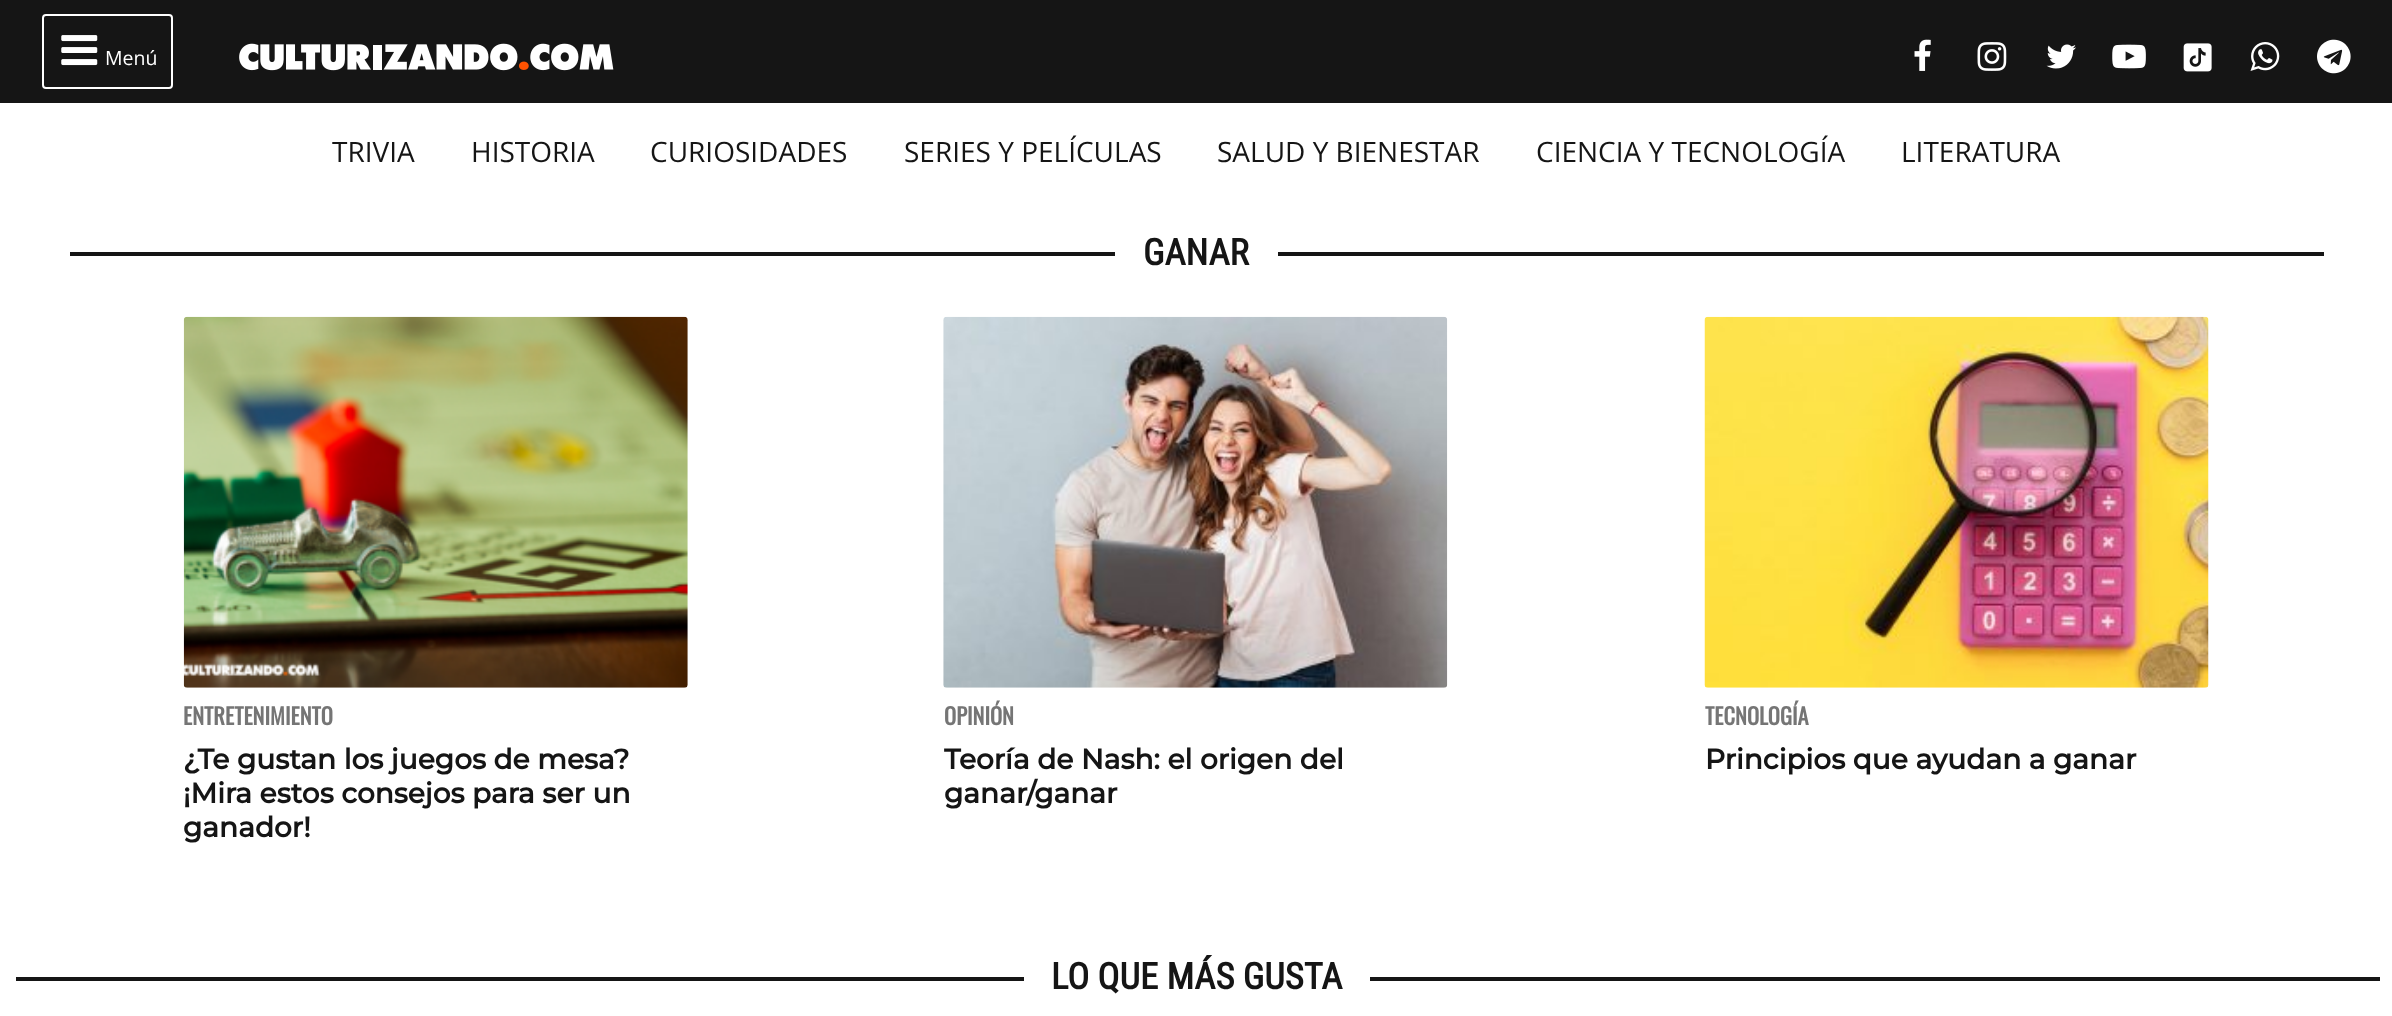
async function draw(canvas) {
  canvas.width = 2392;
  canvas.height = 1016;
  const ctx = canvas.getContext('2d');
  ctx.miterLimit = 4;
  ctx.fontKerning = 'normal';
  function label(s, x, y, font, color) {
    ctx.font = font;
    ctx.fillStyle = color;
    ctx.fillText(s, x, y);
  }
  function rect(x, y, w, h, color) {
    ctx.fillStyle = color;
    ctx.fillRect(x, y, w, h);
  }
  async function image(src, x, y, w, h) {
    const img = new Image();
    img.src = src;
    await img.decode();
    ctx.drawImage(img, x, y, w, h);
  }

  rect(0, 0, 2392, 1016, '#fff');
  rect(0, 0, 2392, 103, '#151515');
  ctx.beginPath();
  ctx.roundRect(43, 15, 129, 73, 3);
  ctx.strokeStyle = '#fff';
  ctx.lineWidth = 2;
  ctx.stroke();
  await image('assets/img1.png', 61, 35, 37, 31);
  label('Menú', 105, 65, '19.5px Open Sans', '#fff');
  await image('assets/img2.png', 239, 43, 375, 28);
  await image('assets/img3.png', 1914, 39, 17, 32);
  await image('assets/img4.png', 1977, 42, 30, 29);
  await image('assets/img5.png', 2046, 44, 30, 25);
  await image('assets/img6.png', 2112, 44, 34, 25);
  await image('assets/img7.png', 2183, 43, 29, 29);
  await image('assets/img8.png', 2250, 42, 30, 29);
  await image('assets/img9.png', 2317, 39, 34, 35);
  label('TRIVIA', 332, 162, '28px Open Sans', '#151515');
  label('HISTORIA', 471, 162, '28px Open Sans', '#151515');
  label('CURIOSIDADES', 650, 162, '28px Open Sans', '#151515');
  label('SERIES Y PELÍCULAS', 904, 162, '28px Open Sans', '#151515');
  label('SALUD Y BIENESTAR', 1217, 162, '28px Open Sans', '#151515');
  label('CIENCIA Y TECNOLOGÍA', 1536, 162, '28px Open Sans', '#151515');
  label('LITERATURA', 1901, 162, '28px Open Sans', '#151515');
  rect(70, 252, 2254, 4, '#151515');
  rect(1115, 252, 163, 4, '#fff');
  label('GANAR', 1143, 265, 'bold 36.5px Roboto Condensed', '#151515');
  await image('assets/img10.png', 183, 316, 505, 372);
  label('ENTRETENIMIENTO', 183, 725, 'bold 22.5px Oswald', '#757575');
  label('¿Te gustan los juegos de mesa?', 183, 769, 'bold 28px Montserrat', '#151515');
  label('¡Mira estos consejos para ser un', 183, 803, 'bold 28px Montserrat', '#151515');
  label('ganador!', 183, 837, 'bold 28px Montserrat', '#151515');
  await image('assets/img11.png', 943, 316, 505, 372);
  label('OPINIÓN', 944, 725, 'bold 22.5px Oswald', '#757575');
  label('Teoría de Nash: el origen del', 944, 769, 'bold 28px Montserrat', '#151515');
  label('ganar/ganar', 944, 803, 'bold 28px Montserrat', '#151515');
  await image('assets/img12.png', 1704, 316, 505, 372);
  label('TECNOLOGÍA', 1705, 725, 'bold 22.5px Oswald', '#757575');
  label('Principios que ayudan a ganar', 1705, 769, 'bold 28px Montserrat', '#151515');
  rect(16, 977, 2364, 4, '#151515');
  rect(1024, 977, 346, 4, '#fff');
  label('LO QUE MÁS GUSTA', 1051, 989, 'bold 36.5px Roboto Condensed', '#151515');
}

draw(document.querySelector('canvas'));
